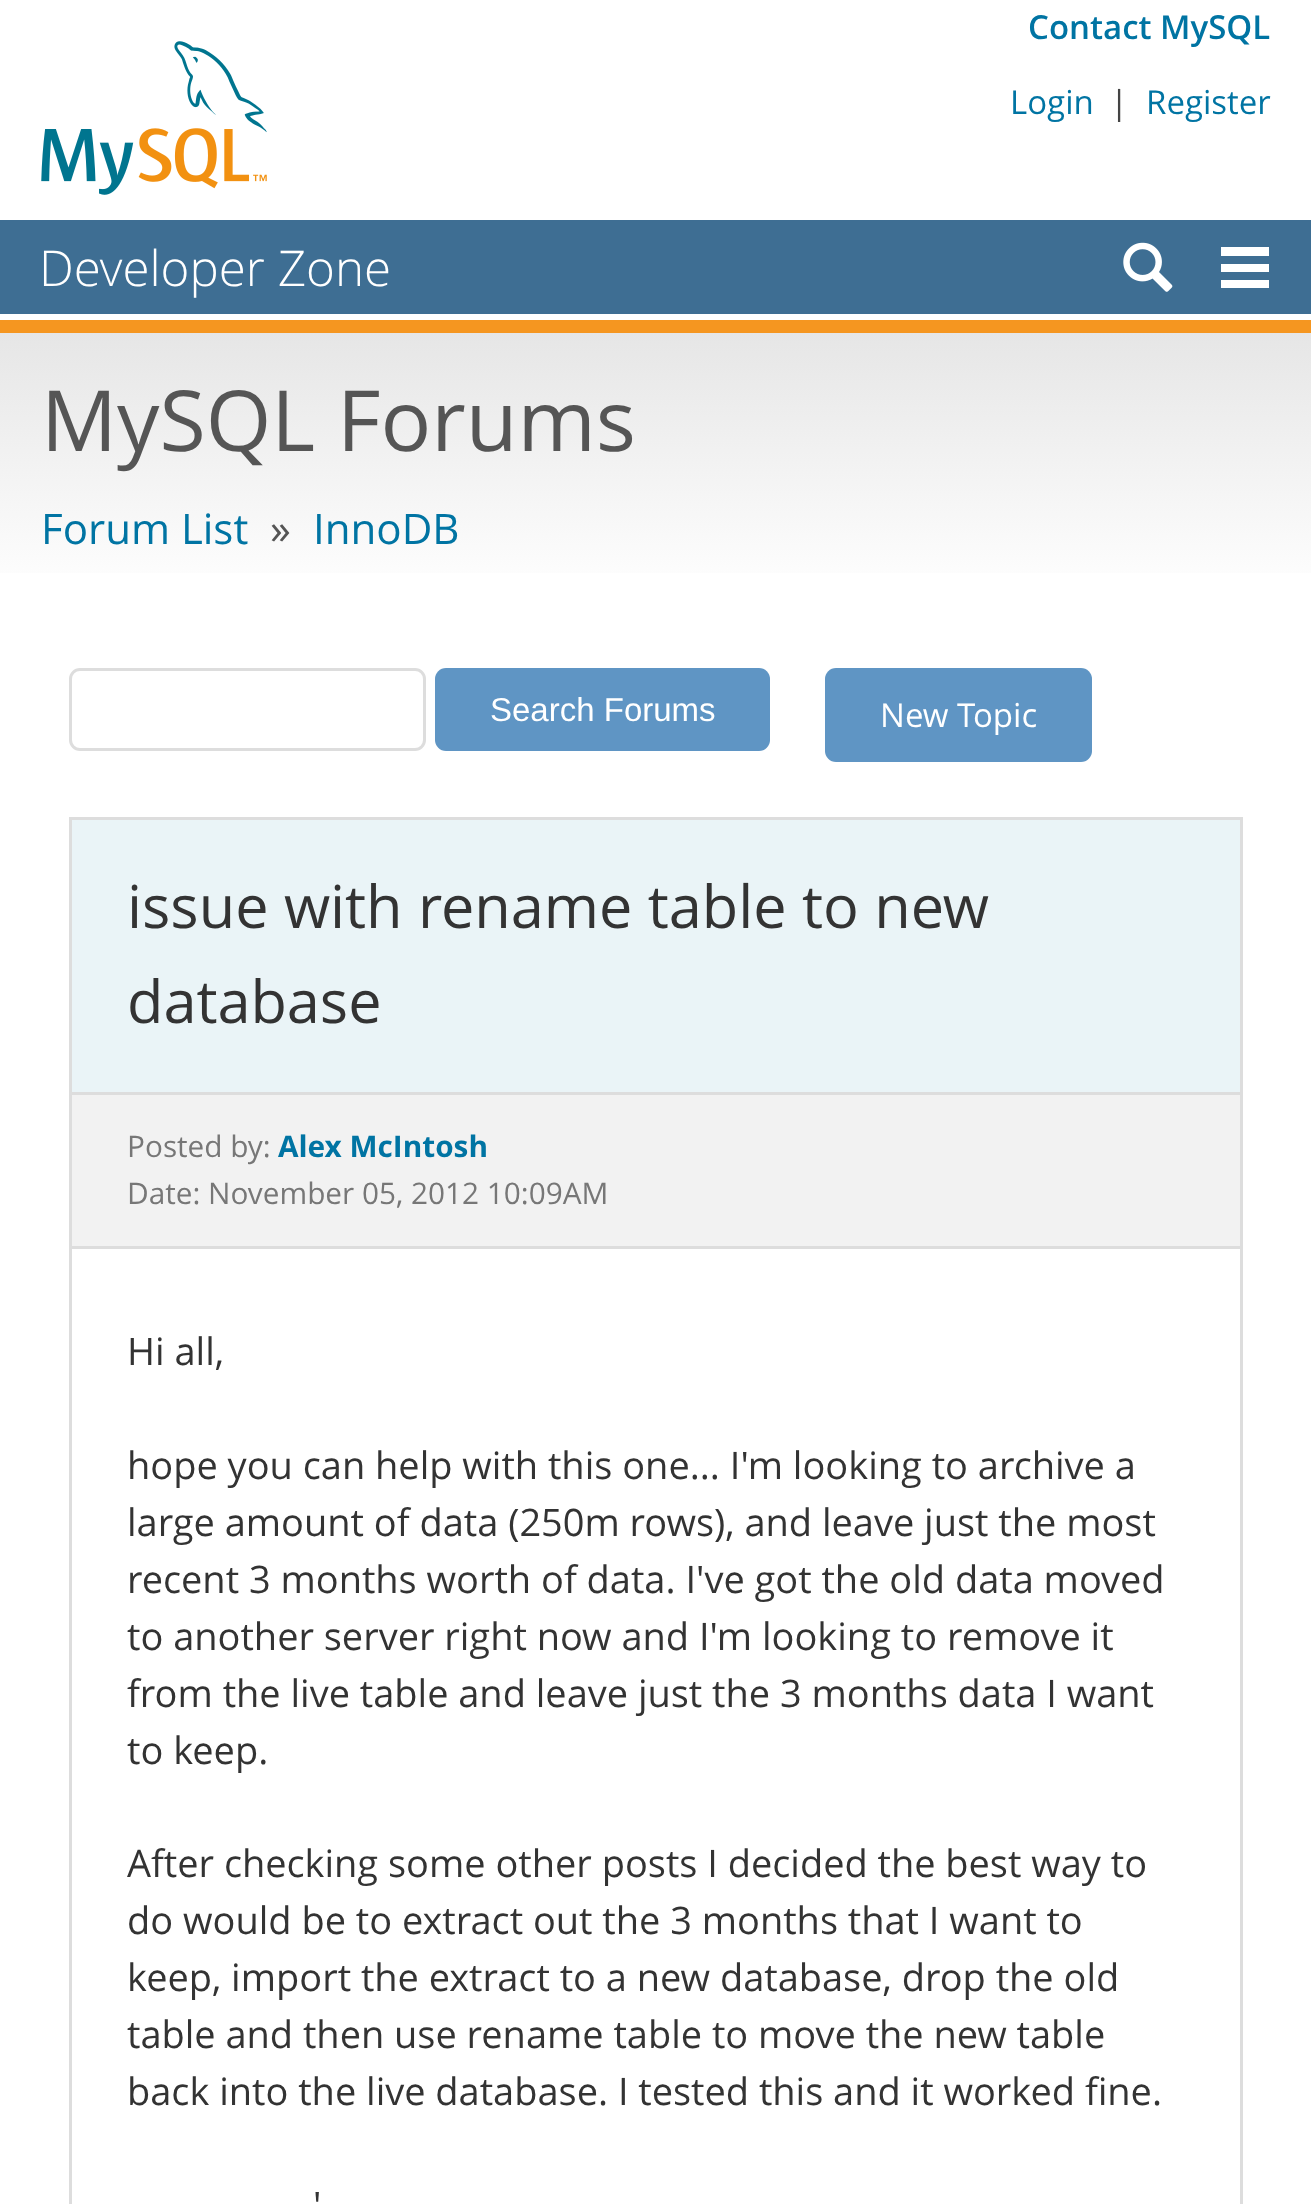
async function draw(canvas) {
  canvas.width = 1311;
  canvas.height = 2204;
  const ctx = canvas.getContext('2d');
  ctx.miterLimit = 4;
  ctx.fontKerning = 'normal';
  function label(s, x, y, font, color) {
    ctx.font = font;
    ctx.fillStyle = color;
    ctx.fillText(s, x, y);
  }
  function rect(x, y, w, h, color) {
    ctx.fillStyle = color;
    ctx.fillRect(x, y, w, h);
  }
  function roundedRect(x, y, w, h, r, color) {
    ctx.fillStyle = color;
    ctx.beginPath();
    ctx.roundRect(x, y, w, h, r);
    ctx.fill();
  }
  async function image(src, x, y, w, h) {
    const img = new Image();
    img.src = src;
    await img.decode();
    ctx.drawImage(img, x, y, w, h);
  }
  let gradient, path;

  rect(0, 0, 1311, 2204, '#fff');
  await image('assets/img1.png', 41, 41, 226, 154);
  label('Contact MySQL', 1028, 39, '600 33px Open Sans', '#0074a3');
  label('Login', 1010, 114, '33px Open Sans', '#0074a3');
  label('|', 1110, 114, '33px Open Sans', '#444');
  label('Register', 1146, 114, '33px Open Sans', '#0074a3');
  rect(0, 220, 1311, 94, '#3e6e93');
  label('Developer Zone', 39, 286, '300 49.25px Open Sans', '#fff');
  await image('assets/img2.png', 1123, 242, 50, 50);
  path = new Path2D('M1221 247V256H1269V247ZM1221 272H1269V264H1221ZM1221 288H1269V280H1221Z');
  ctx.fill(path);
  rect(0, 320, 1311, 13, '#f59620');
  gradient = ctx.createLinearGradient(656, 333, 656, 600);
  gradient.addColorStop(0, '#e6e6e6');
  gradient.addColorStop(1, '#fff');
  ctx.fillStyle = gradient;
  ctx.fillRect(0, 333, 1311, 240);
  label('MySQL Forums', 41, 451, '84.25px Open Sans', '#555');
  label('Forum List', 41, 544, '42px Open Sans', '#0074a3');
  label('»', 270, 544, '42px Open Sans', '#555');
  label('InnoDB', 313, 544, '42px Open Sans', '#0074a3');
  ctx.beginPath();
  ctx.roundRect(70.5, 669.5, 354, 80, 9.5);
  ctx.strokeStyle = '#ddd';
  ctx.lineWidth = 3;
  ctx.stroke();
  roundedRect(435, 668, 335, 83, 11, '#5f95c4');
  label('Search Forums', 490, 721, '33px Liberation Sans', '#fff');
  roundedRect(825, 668, 267, 94, 11, '#5f95c4');
  label('New Topic', 880, 727, '33px Open Sans', '#fff');
  ctx.strokeRect(70.5, 818.5, 1171, 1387);
  rect(72, 820, 1168, 272, '#eaf4f7');
  label('issue with rename table to new', 127, 928, '59.4px Open Sans', '#333');
  label('database', 127, 1023, '59.4px Open Sans', '#333');
  rect(72, 1095, 1168, 151, '#f2f2f2');
  rect(72, 1092, 1168, 3, '#ddd');
  rect(72, 1246, 1168, 3, '#ddd');
  label('Posted by:', 127, 1157, '29.75px Open Sans', '#777');
  label('Alex McIntosh', 278, 1157, 'bold 29.75px Open Sans', '#0074a3');
  label('Date: November 05, 2012 10:09AM', 127, 1204, '29.75px Open Sans', '#777');
  label('Hi all,', 127, 1365, '37.95px Open Sans', '#333');
  label('hope you can help with this one... I\'m looking to archive a', 127, 1479, '37.95px Open Sans', '#333');
  label('large amount of data (250m rows), and leave just the most', 127, 1536, '37.95px Open Sans', '#333');
  label('recent 3 months worth of data. I\'ve got the old data moved', 127, 1593, '37.95px Open Sans', '#333');
  label('to another server right now and I\'m looking to remove it', 127, 1650, '37.95px Open Sans', '#333');
  label('from the live table and leave just the 3 months data I want', 127, 1707, '37.95px Open Sans', '#333');
  label('to keep.', 127, 1764, '37.95px Open Sans', '#333');
  label('After checking some other posts I decided the best way to', 127, 1877, '37.95px Open Sans', '#333');
  label('do would be to extract out the 3 months that I want to', 127, 1934, '37.95px Open Sans', '#333');
  label('keep, import the extract to a new database, drop the old', 127, 1991, '37.95px Open Sans', '#333');
  label('table and then use rename table to move the new table', 127, 2048, '37.95px Open Sans', '#333');
  label('back into the live database. I tested this and it worked fine.', 127, 2105, '37.95px Open Sans', '#333');
  label('\'', 313, 2219, '37.95px Open Sans', '#333');
}

draw(document.querySelector('canvas'));
